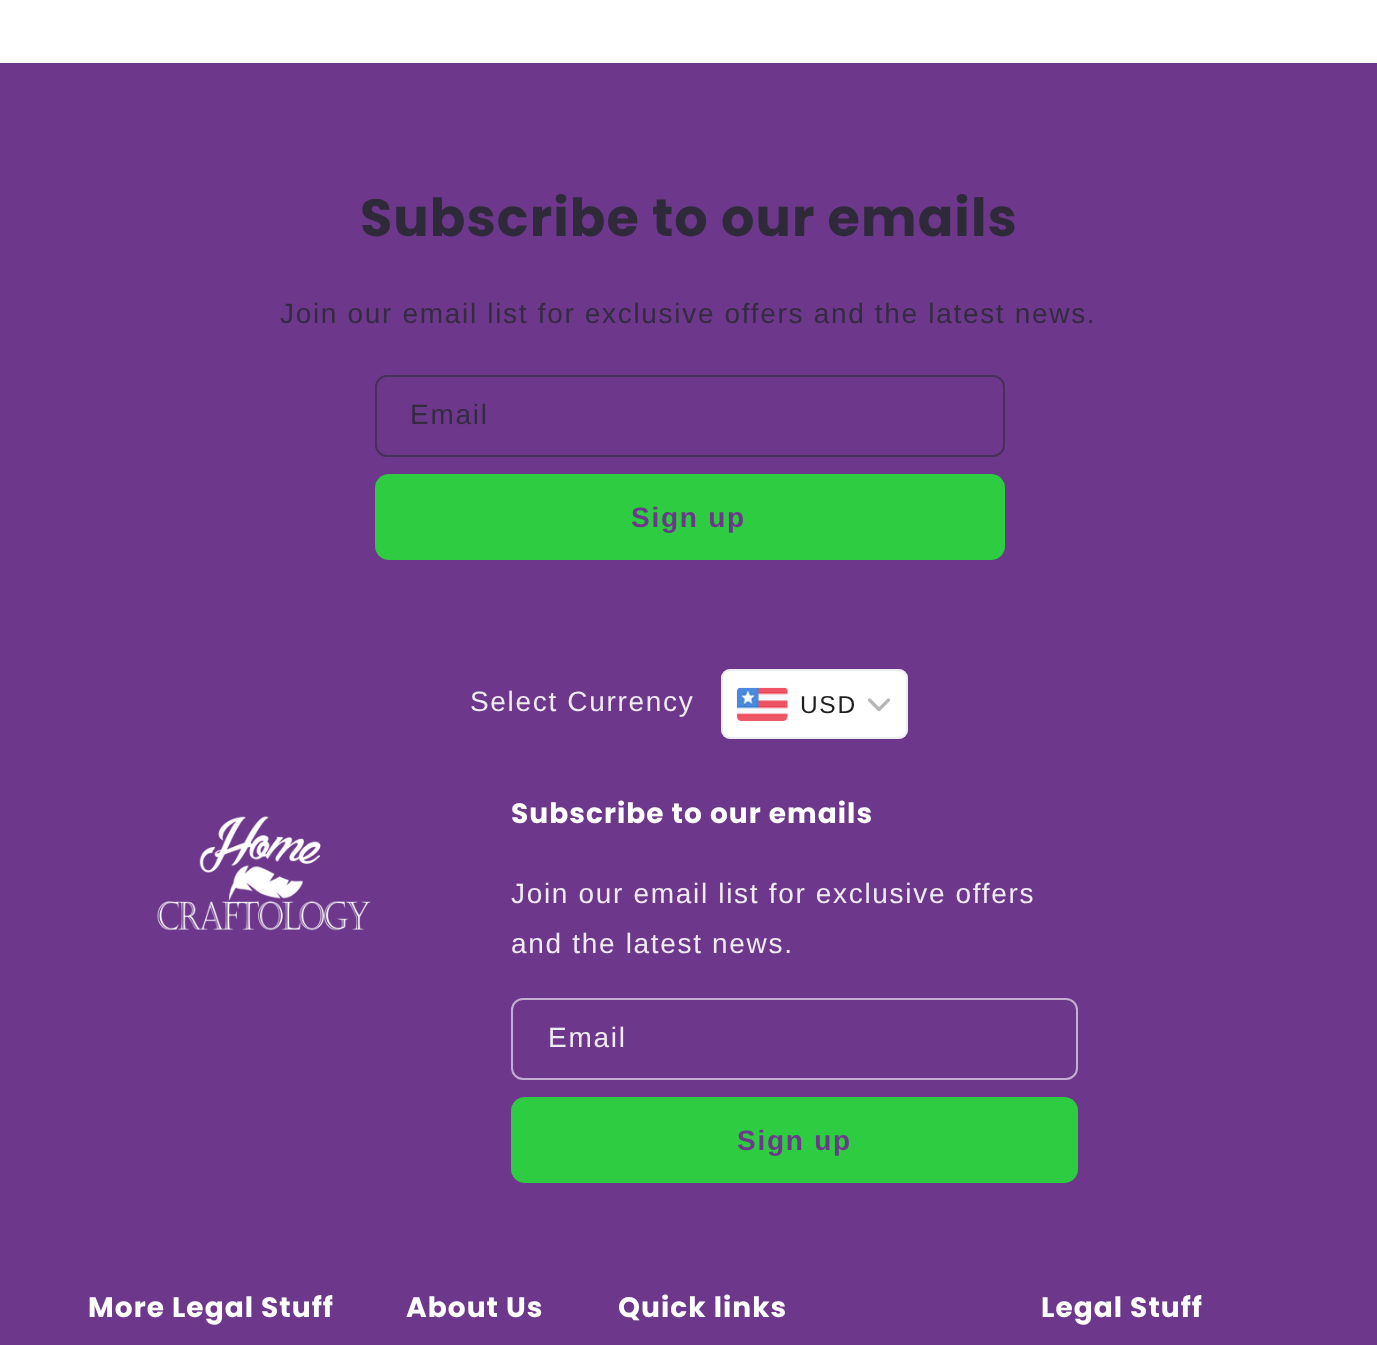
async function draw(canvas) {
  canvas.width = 1377;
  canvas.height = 1345;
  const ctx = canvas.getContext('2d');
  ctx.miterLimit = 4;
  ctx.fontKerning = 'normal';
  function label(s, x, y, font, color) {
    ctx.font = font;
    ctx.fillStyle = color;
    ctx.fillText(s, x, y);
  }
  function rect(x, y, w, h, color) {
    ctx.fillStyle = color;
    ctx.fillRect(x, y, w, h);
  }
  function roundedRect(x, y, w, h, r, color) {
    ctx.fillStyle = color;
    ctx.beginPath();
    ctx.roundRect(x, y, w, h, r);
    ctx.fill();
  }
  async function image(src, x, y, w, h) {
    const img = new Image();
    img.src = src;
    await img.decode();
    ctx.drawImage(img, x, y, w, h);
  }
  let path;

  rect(0, 0, 1377, 1345, '#fff');
  rect(0, 63, 1377, 1282, '#6d388b');
  ctx.letterSpacing = '1.05px';
  label('Subscribe to our emails', 360, 236, 'bold 52.5px Poppins', '#2e2a39');
  ctx.letterSpacing = '1.68px';
  label('Join our email list for exclusive offers and the latest news.', 280, 323, '28px Liberation Sans', '#342b41');
  ctx.beginPath();
  ctx.roundRect(376, 376, 628, 80, 11);
  ctx.strokeStyle = '#47305a';
  ctx.lineWidth = 2;
  ctx.stroke();
  ctx.letterSpacing = '1.75px';
  label('Email', 410, 424, '28px Liberation Sans', '#342b41');
  roundedRect(375, 474, 630, 86, 14, '#2ecc40');
  label('Sign up', 631, 527, 'bold 28px Liberation Sans', '#6d388b');
  ctx.letterSpacing = '1.68px';
  label('Select Currency', 470, 711, '28px Liberation Sans', '#f0ebf3');
  roundedRect(721, 669, 187, 70, 9, '#fff');
  ctx.beginPath();
  ctx.roundRect(722, 670, 185, 68, 8);
  ctx.strokeStyle = '#cccccc5c';
  ctx.stroke();
  await image('assets/img1.png', 736, 687, 52, 34);
  label('USD', 800, 713, '24.5px Liberation Sans', '#1e1e1e');
  path = new Path2D('M869.5 700L879 709.5L888.5 700');
  ctx.strokeStyle = '#b7b7b7';
  ctx.lineWidth = 3.2;
  ctx.lineCap = 'round';
  ctx.lineJoin = 'round';
  ctx.stroke(path);
  await image('assets/img2.png', 157, 816, 214, 115);
  ctx.letterSpacing = '1.05px';
  label('Subscribe to our emails', 511, 823, 'bold 28px Poppins', '#fff');
  ctx.letterSpacing = '1.68px';
  label('Join our email list for exclusive offers', 511, 903, '28px Liberation Sans', '#f0ebf3');
  label('and the latest news.', 511, 953, '28px Liberation Sans', '#f0ebf3');
  ctx.beginPath();
  ctx.roundRect(512, 999, 565, 80, 11);
  ctx.strokeStyle = '#c5afd1';
  ctx.lineWidth = 2;
  ctx.lineJoin = 'miter';
  ctx.stroke();
  ctx.letterSpacing = '1.75px';
  label('Email', 548, 1047, '28px Liberation Sans', '#f0ebf3');
  roundedRect(511, 1097, 567, 86, 14, '#2ecc40');
  label('Sign up', 737, 1150, 'bold 28px Liberation Sans', '#6d388b');
  ctx.letterSpacing = '1.05px';
  label('More Legal Stuff', 88, 1317, 'bold 28px Poppins', '#fff');
  label('About Us', 406, 1317, 'bold 28px Poppins', '#fff');
  label('Quick links', 618, 1317, 'bold 28px Poppins', '#fff');
  label('Legal Stuff', 1041, 1317, 'bold 28px Poppins', '#fff');
}

draw(document.querySelector('canvas'));
